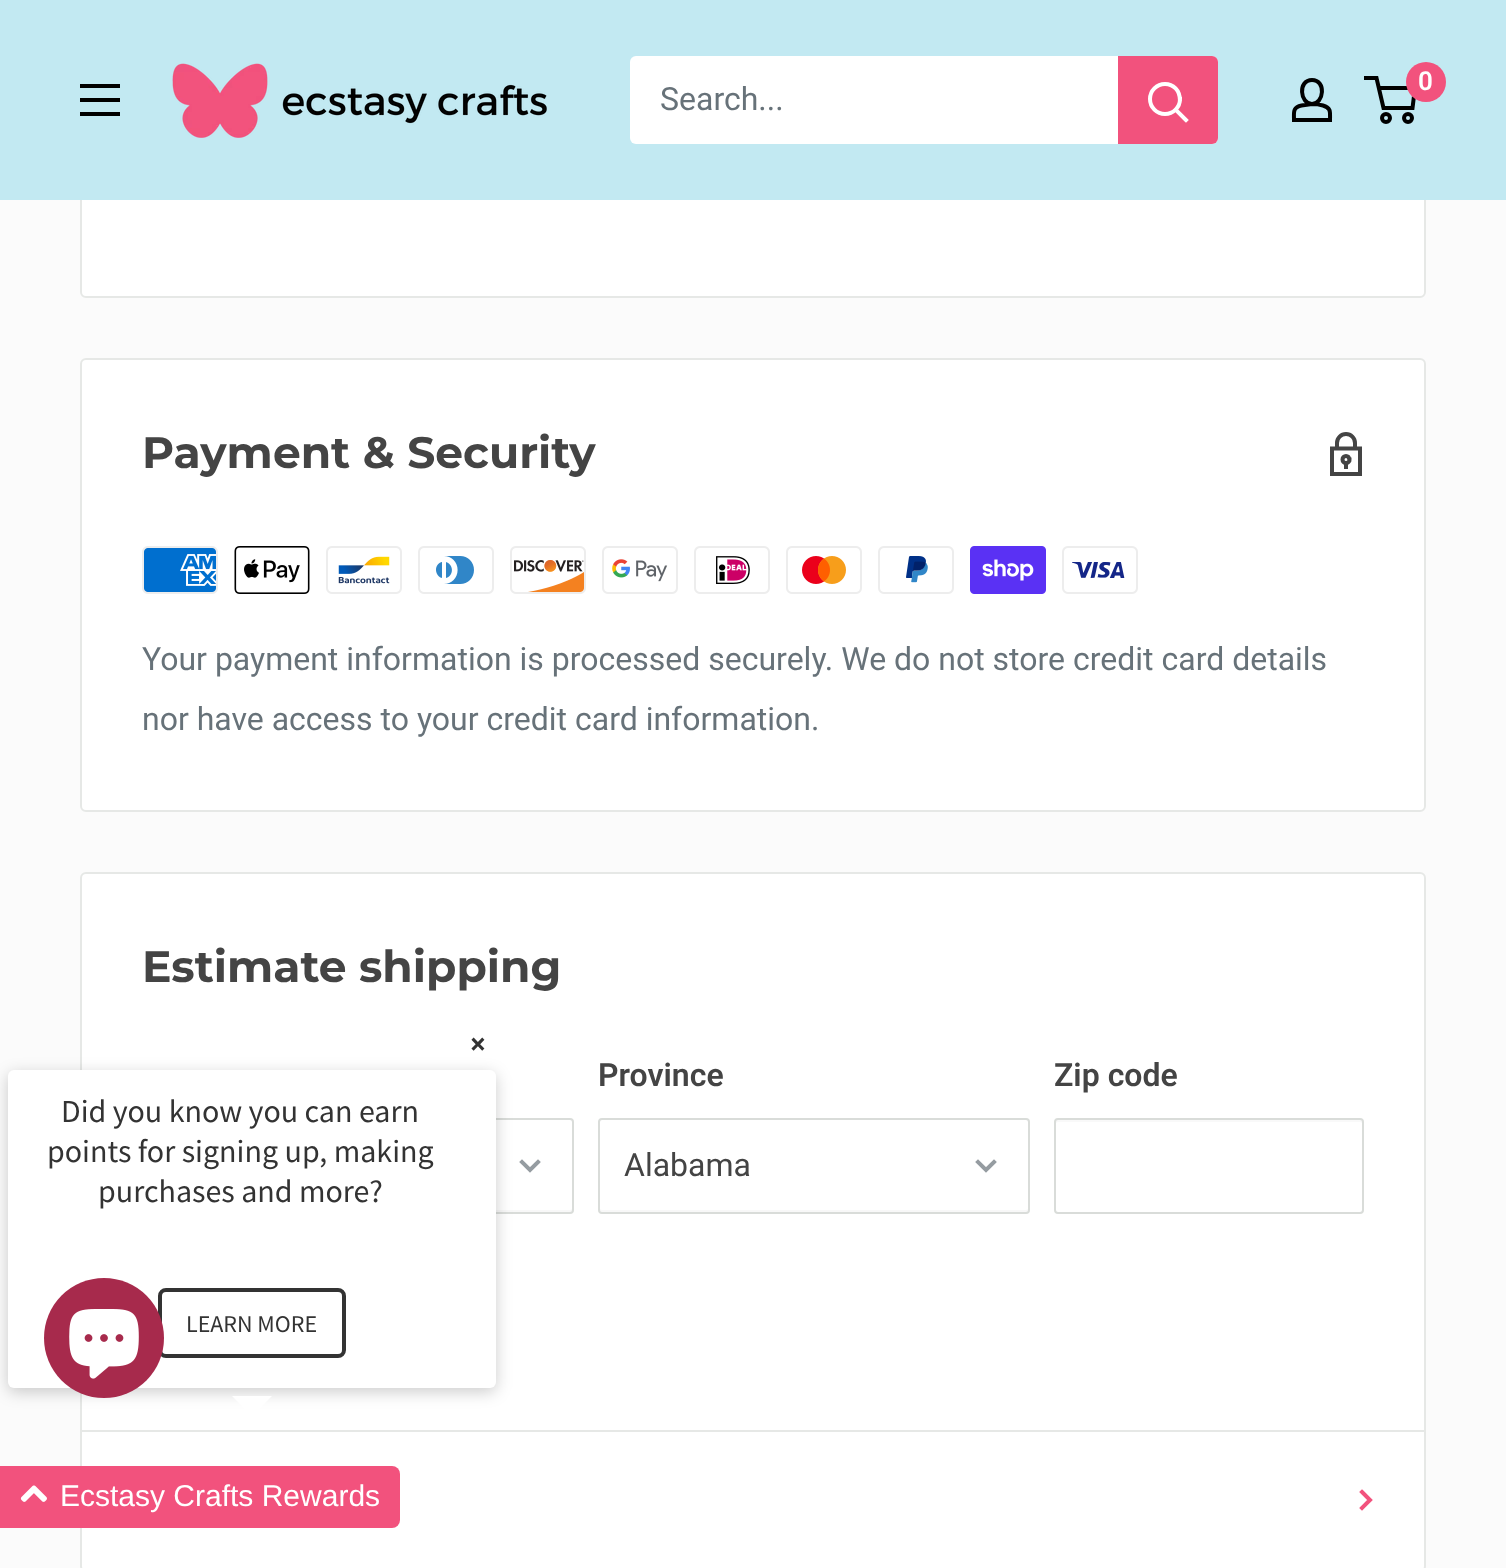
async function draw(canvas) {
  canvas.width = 1506;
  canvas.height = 1568;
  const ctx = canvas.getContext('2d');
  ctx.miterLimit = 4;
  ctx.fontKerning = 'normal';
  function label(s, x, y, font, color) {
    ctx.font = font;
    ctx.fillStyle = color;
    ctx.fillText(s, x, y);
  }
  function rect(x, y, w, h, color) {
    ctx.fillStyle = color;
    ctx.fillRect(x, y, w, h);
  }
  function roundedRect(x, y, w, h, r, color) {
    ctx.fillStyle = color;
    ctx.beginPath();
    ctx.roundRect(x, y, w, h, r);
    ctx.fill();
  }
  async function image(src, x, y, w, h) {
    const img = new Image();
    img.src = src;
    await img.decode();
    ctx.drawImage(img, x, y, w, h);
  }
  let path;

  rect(0, 0, 1506, 1568, '#fbfbfb');
  ctx.fillStyle = '#fff';
  ctx.beginPath();
  ctx.roundRect(81, 175, 1344, 122, 5);
  ctx.fill();
  ctx.strokeStyle = '#e6e8e6';
  ctx.lineWidth = 2;
  ctx.stroke();
  rect(0, 0, 1506, 200, '#c2e9f2');
  await image('assets/img1.png', 172, 63, 375, 75);
  path = new Path2D('M1312 104C1316 104 1319.5 104.5 1323 105.5C1331.5 108 1330 112.5 1330 120H1294C1294 112 1292.5 107.5 1301.5 105.5ZM1312 104C1300 104 1297.5 80 1312 80C1326.5 80 1324 104 1312 104Z');
  ctx.strokeStyle = '#000';
  ctx.lineWidth = 4;
  ctx.stroke(path);
  ctx.beginPath();
  ctx.arc(1386, 118, 4, 0, 2 * Math.PI);
  ctx.stroke();
  ctx.beginPath();
  ctx.arc(1408, 118, 4, 0, 2 * Math.PI);
  ctx.stroke();
  path = new Path2D('M1378.5 88H1415L1412.5 108H1383.5L1376.5 78H1364');
  ctx.stroke(path);
  ctx.fillStyle = '#f2527d';
  ctx.beginPath();
  ctx.arc(1426, 82, 20, 0, 2 * Math.PI);
  ctx.fill();
  label('0', 1418, 90, '600 26px Roboto', '#fff');
  ctx.fillStyle = '#000';
  path = new Path2D('M80 112H120V116H80ZM80 84H120V88H80ZM80 98H120V102H80Z');
  ctx.fill(path, 'evenodd');
  roundedRect(630, 56, 588, 88, 6, '#fff');
  label('Search...', 660, 110, '32px Roboto', '#677279');
  ctx.fillStyle = '#f2527d';
  ctx.beginPath();
  ctx.roundRect(1118, 56, 100, 88, [0, 6, 6, 0]);
  ctx.fill();
  path = new Path2D('M1186 120L1176 110');
  ctx.strokeStyle = '#fff';
  ctx.lineCap = 'square';
  ctx.stroke(path);
  ctx.beginPath();
  ctx.arc(1165, 99, 15, 0, 2 * Math.PI);
  ctx.stroke();
  ctx.fillStyle = '#fff';
  ctx.beginPath();
  ctx.roundRect(81, 359, 1344, 452, 5);
  ctx.fill();
  ctx.strokeStyle = '#e6e8e6';
  ctx.lineWidth = 2;
  ctx.stroke();
  label('Payment & Security', 142, 468, 'bold 44px Montserrat', '#444');
  path = new Path2D('M1346 434C1341 434 1337 438 1337 443V448.5H1355V443C1355 438 1351 434 1346 434ZM1332 448.5H1360V474H1332Z');
  ctx.strokeStyle = '#444';
  ctx.lineWidth = 4;
  ctx.stroke(path);
  ctx.beginPath();
  ctx.arc(1346, 459.5, 3.5, 0, 2 * Math.PI);
  ctx.stroke();
  path = new Path2D('M1346 463V467');
  ctx.stroke(path);
  await image('assets/img2.png', 142, 546, 76, 48);
  await image('assets/img3.png', 234, 546, 76, 48);
  await image('assets/img4.png', 326, 546, 76, 48);
  await image('assets/img5.png', 418, 546, 76, 48);
  await image('assets/img6.png', 510, 546, 76, 48);
  await image('assets/img7.png', 602, 546, 76, 48);
  await image('assets/img8.png', 694, 546, 76, 48);
  await image('assets/img9.png', 786, 546, 76, 48);
  await image('assets/img10.png', 878, 546, 76, 48);
  await image('assets/img11.png', 970, 546, 76, 48);
  await image('assets/img12.png', 1062, 546, 76, 48);
  label('Your payment information is processed securely. We do not store credit card details', 142, 670, '32px Roboto', '#677279');
  label('nor have access to your credit card information.', 142, 730, '32px Roboto', '#677279');
  ctx.fillStyle = '#fff';
  ctx.beginPath();
  ctx.roundRect(81, 873, 1344, 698, 5);
  ctx.fill();
  ctx.strokeStyle = '#e6e8e6';
  ctx.lineWidth = 2;
  ctx.stroke();
  label('Estimate shipping', 142, 982, 'bold 44px Montserrat', '#444');
  label('Province', 598, 1086, '600 32px Roboto', '#444');
  ctx.fillStyle = '#f8f8f8';
  path = new Path2D('M600 1208V1211L602 1212H1026C1028 1212 1028 1210 1028 1208C1028 1209 1027 1210 1026 1210H602C601 1210 600 1209 600 1208Z');
  ctx.fill(path);
  ctx.beginPath();
  ctx.roundRect(599, 1119, 430, 94, 3);
  ctx.strokeStyle = '#d9dcd9';
  ctx.stroke();
  label('Alabama', 624, 1176, '32px Roboto', '#444');
  path = new Path2D('M994 1162L986 1170L978 1162');
  ctx.strokeStyle = '#959ca1';
  ctx.lineWidth = 4;
  ctx.stroke(path);
  label('Zip code', 1054, 1086, '600 32px Roboto', '#444');
  ctx.fillStyle = '#f9f9f9';
  path = new Path2D('M1058 1122H1360C1361 1122 1362 1123 1362 1124V1122C1362 1121 1361 1120 1360 1120H1058C1057 1120 1056 1121 1056 1122V1124C1056 1123 1057 1122 1058 1122Z');
  ctx.fill(path);
  ctx.beginPath();
  ctx.roundRect(1055, 1119, 308, 94, 3);
  ctx.strokeStyle = '#d9dcd9';
  ctx.lineWidth = 2;
  ctx.stroke();
  ctx.fillStyle = '#f8f8f8';
  path = new Path2D('M144 1208C144 1210 144 1212 146 1212H570L572 1211V1208C572 1209 571 1210 570 1210H146C145 1210 144 1209 144 1208Z');
  ctx.fill(path);
  ctx.beginPath();
  ctx.roundRect(143, 1119, 430, 94, 3);
  ctx.stroke();
  path = new Path2D('M538 1162L530 1170L522 1162');
  ctx.strokeStyle = '#959ca1';
  ctx.lineWidth = 4;
  ctx.stroke(path);
  rect(82, 1430, 1342, 2, '#e6e8e6');
  path = new Path2D('M1362 1492L1370 1500L1362 1508');
  ctx.strokeStyle = '#f2527d';
  ctx.stroke(path);
  label('×', 470, 1054, 'bold 30px Source Sans Pro', '#333');
  ctx.fillStyle = '#00000033';
  ctx.filter = 'blur(8px)';
  ctx.beginPath();
  ctx.roundRect(8, 1074, 488, 318, 6);
  ctx.fill();
  ctx.filter = 'none';
  roundedRect(8, 1070, 488, 318, 6, '#fff');
  label('Did you know you can earn', 61, 1122, '32px Source Sans Pro', '#333');
  label('points for signing up, making', 47, 1162, '32px Source Sans Pro', '#333');
  label('purchases and more?', 98, 1202, '32px Source Sans Pro', '#333');
  ctx.beginPath();
  ctx.roundRect(160, 1290, 184, 66, 6);
  ctx.strokeStyle = '#333';
  ctx.stroke();
  label('LEARN MORE', 186, 1332, '24px Source Sans Pro', '#333');
  ctx.fillStyle = '#fff';
  path = new Path2D('M232 1396H272L252 1416Z');
  ctx.fill(path);
  ctx.fillStyle = '#f2527d';
  ctx.beginPath();
  ctx.roundRect(0, 1466, 400, 62, [0, 8, 8, 0]);
  ctx.fill();
  await image('assets/img13.png', 20, 1485, 27, 17);
  label('Ecstasy Crafts Rewards', 60, 1506, '30px Liberation Sans', '#fff');
  ctx.fillStyle = '#a72a4c';
  ctx.beginPath();
  ctx.arc(104, 1338, 60, 0, 2 * Math.PI);
  ctx.fill();
  await image('assets/img14.png', 69, 1309, 70, 70);
}

draw(document.querySelector('canvas'));
